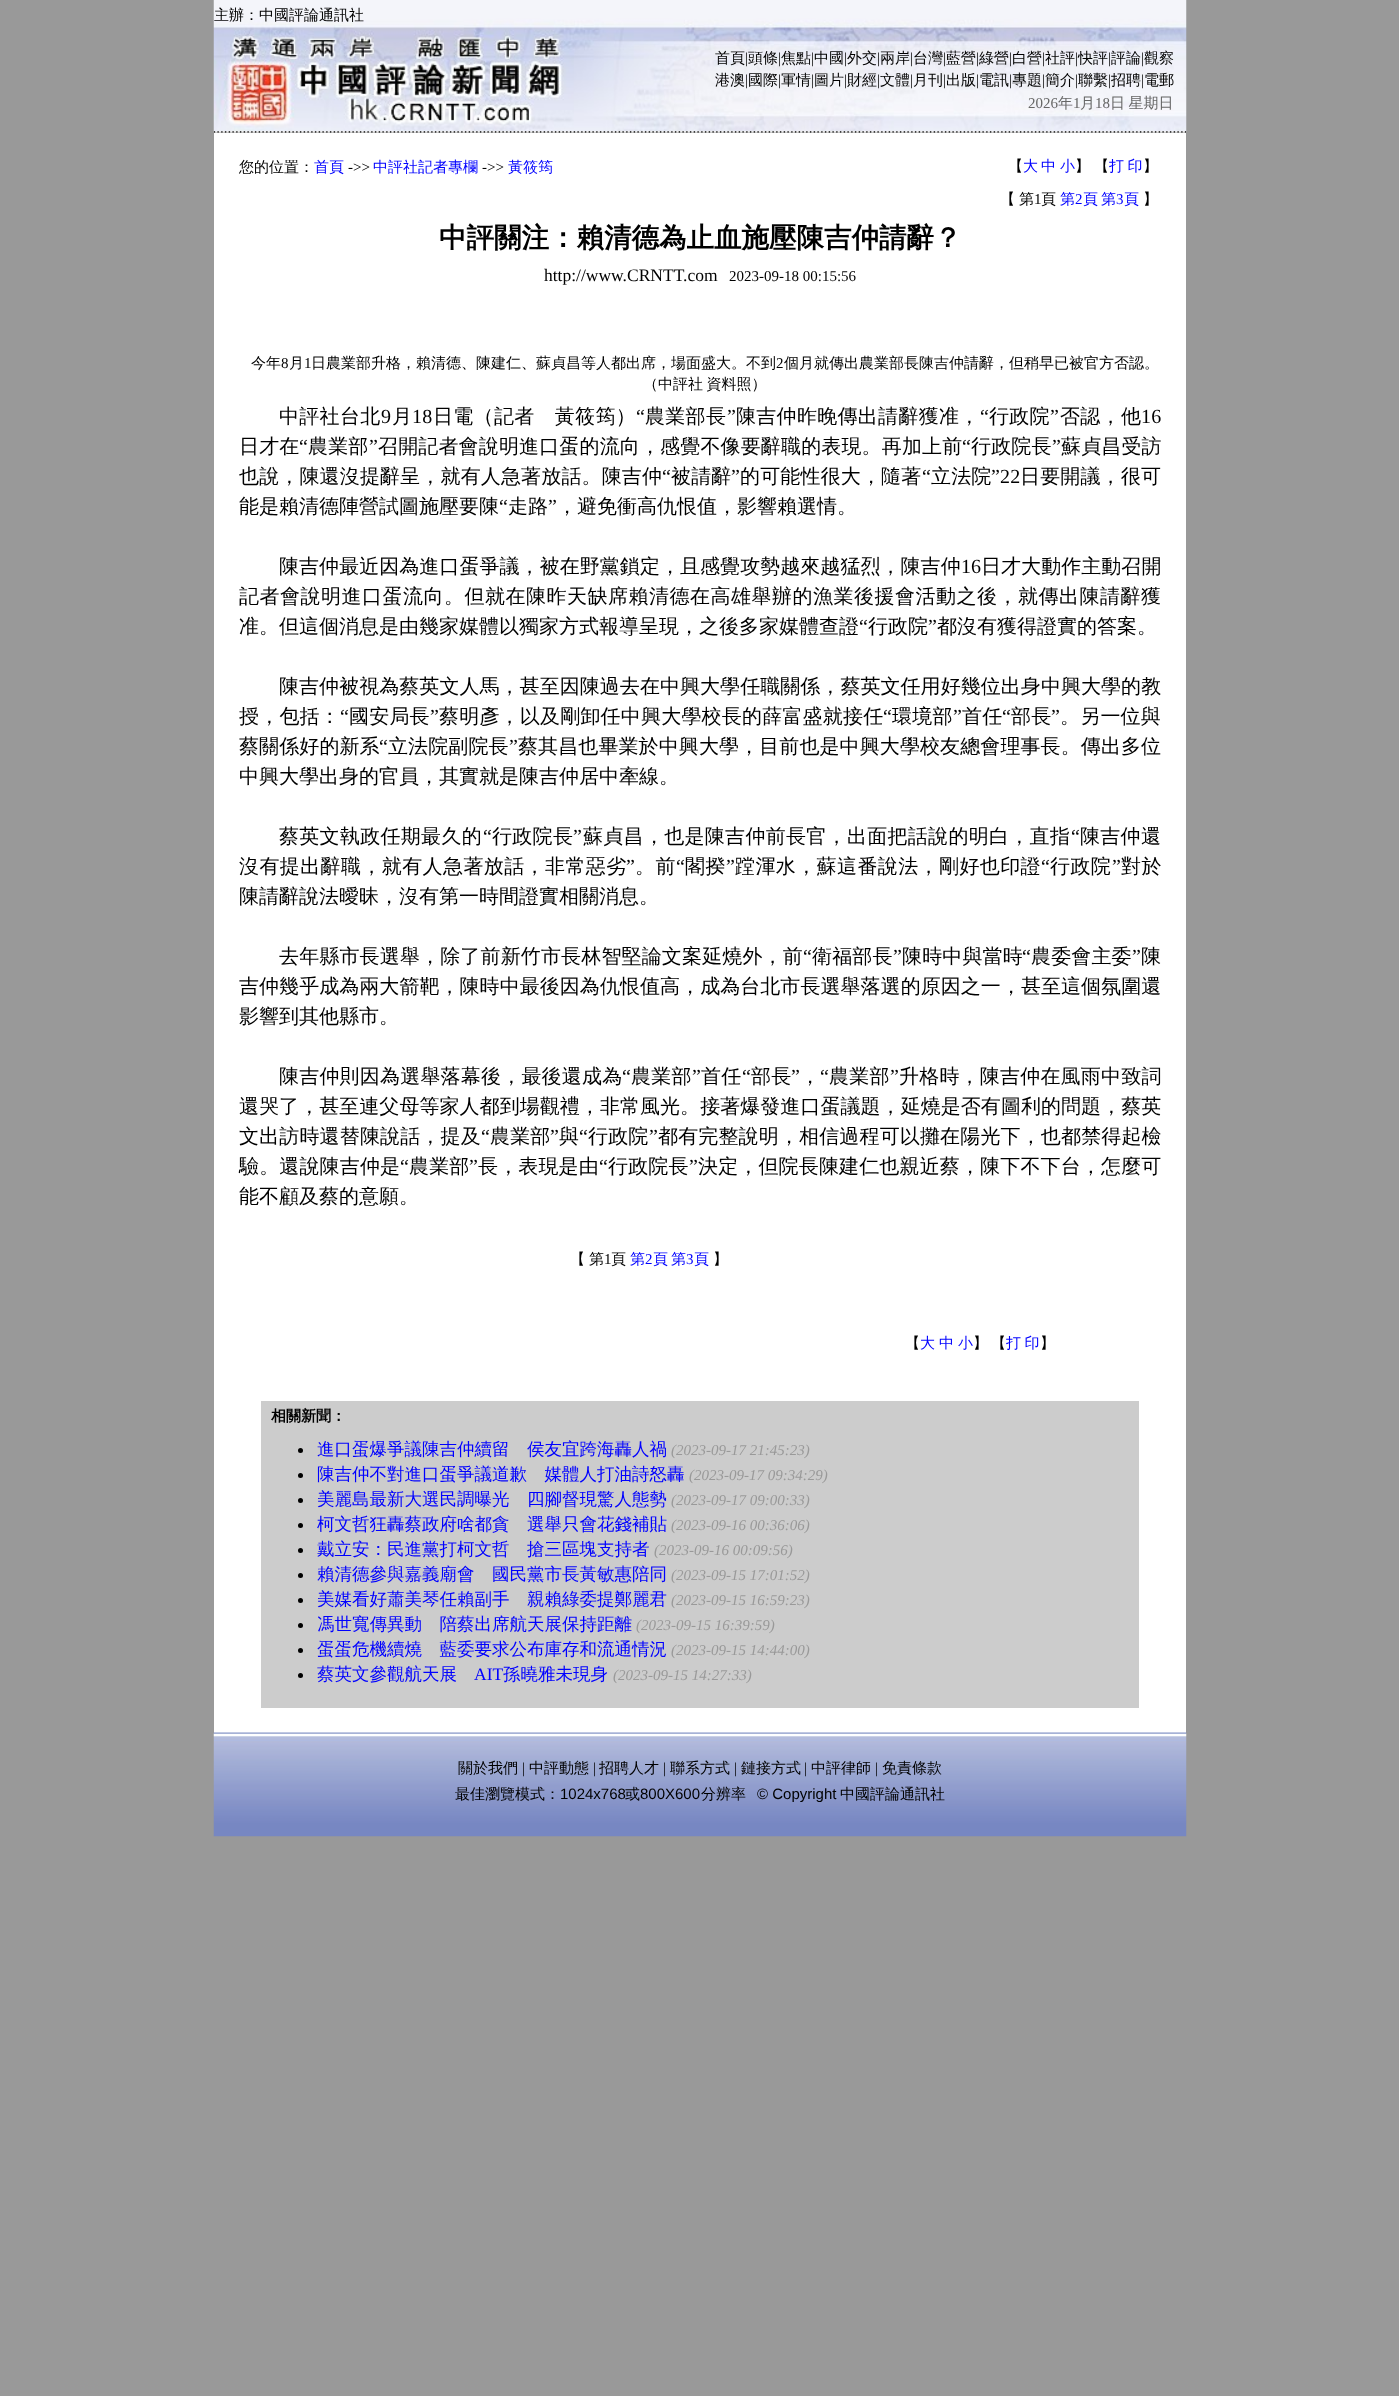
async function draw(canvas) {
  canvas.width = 1399;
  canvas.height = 2396;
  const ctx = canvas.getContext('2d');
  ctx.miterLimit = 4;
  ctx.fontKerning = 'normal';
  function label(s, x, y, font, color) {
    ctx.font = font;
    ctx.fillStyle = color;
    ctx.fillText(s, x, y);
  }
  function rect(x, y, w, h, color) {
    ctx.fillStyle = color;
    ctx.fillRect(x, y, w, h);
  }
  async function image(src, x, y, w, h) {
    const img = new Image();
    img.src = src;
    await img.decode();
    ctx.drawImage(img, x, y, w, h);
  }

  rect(0, 0, 1399, 2396, '#999');
  await image('assets/img1.png', 213, 0, 974, 132);
  label('主辦：中國評論通訊社', 214, 20, '500 15px WenQuanYi Zen Hei', '#000');
  label('首頁', 715, 63, '500 15px WenQuanYi Zen Hei', '#000');
  label('|', 745, 63, '15px Liberation Serif', '#000');
  label('頭條', 748, 63, '500 15px WenQuanYi Zen Hei', '#000');
  label('|', 778, 63, '15px Liberation Serif', '#000');
  label('焦點', 781, 63, '500 15px WenQuanYi Zen Hei', '#000');
  label('|', 811, 63, '15px Liberation Serif', '#000');
  label('中國', 814, 63, '500 15px WenQuanYi Zen Hei', '#000');
  label('|', 844, 63, '15px Liberation Serif', '#000');
  label('外交', 847, 63, '500 15px WenQuanYi Zen Hei', '#000');
  label('|', 877, 63, '15px Liberation Serif', '#000');
  label('兩岸', 880, 63, '500 15px WenQuanYi Zen Hei', '#000');
  label('|', 910, 63, '15px Liberation Serif', '#000');
  label('台灣', 913, 63, '500 15px WenQuanYi Zen Hei', '#000');
  label('|', 943, 63, '15px Liberation Serif', '#000');
  label('藍營', 946, 63, '500 15px WenQuanYi Zen Hei', '#000');
  label('|', 976, 63, '15px Liberation Serif', '#000');
  label('綠營', 979, 63, '500 15px WenQuanYi Zen Hei', '#000');
  label('|', 1009, 63, '15px Liberation Serif', '#000');
  label('白營', 1012, 63, '500 15px WenQuanYi Zen Hei', '#000');
  label('|', 1042, 63, '15px Liberation Serif', '#000');
  label('社評', 1045, 63, '500 15px WenQuanYi Zen Hei', '#000');
  label('|', 1075, 63, '15px Liberation Serif', '#000');
  label('快評', 1078, 63, '500 15px WenQuanYi Zen Hei', '#000');
  label('|', 1108, 63, '15px Liberation Serif', '#000');
  label('評論', 1111, 63, '500 15px WenQuanYi Zen Hei', '#000');
  label('|', 1141, 63, '15px Liberation Serif', '#000');
  label('觀察', 1144, 63, '500 15px WenQuanYi Zen Hei', '#000');
  label('港澳', 715, 85, '500 15px WenQuanYi Zen Hei', '#000');
  label('|', 745, 85, '15px Liberation Serif', '#000');
  label('國際', 748, 85, '500 15px WenQuanYi Zen Hei', '#000');
  label('|', 778, 85, '15px Liberation Serif', '#000');
  label('軍情', 781, 85, '500 15px WenQuanYi Zen Hei', '#000');
  label('|', 811, 85, '15px Liberation Serif', '#000');
  label('圖片', 814, 85, '500 15px WenQuanYi Zen Hei', '#000');
  label('|', 844, 85, '15px Liberation Serif', '#000');
  label('財經', 847, 85, '500 15px WenQuanYi Zen Hei', '#000');
  label('|', 877, 85, '15px Liberation Serif', '#000');
  label('文體', 880, 85, '500 15px WenQuanYi Zen Hei', '#000');
  label('|', 910, 85, '15px Liberation Serif', '#000');
  label('月刊', 913, 85, '500 15px WenQuanYi Zen Hei', '#000');
  label('|', 943, 85, '15px Liberation Serif', '#000');
  label('出版', 946, 85, '500 15px WenQuanYi Zen Hei', '#000');
  label('|', 976, 85, '15px Liberation Serif', '#000');
  label('電訊', 979, 85, '500 15px WenQuanYi Zen Hei', '#000');
  label('|', 1009, 85, '15px Liberation Serif', '#000');
  label('專題', 1012, 85, '500 15px WenQuanYi Zen Hei', '#000');
  label('|', 1042, 85, '15px Liberation Serif', '#000');
  label('簡介', 1045, 85, '500 15px WenQuanYi Zen Hei', '#000');
  label('|', 1075, 85, '15px Liberation Serif', '#000');
  label('聯繫', 1078, 85, '500 15px WenQuanYi Zen Hei', '#000');
  label('|', 1108, 85, '15px Liberation Serif', '#000');
  label('招聘', 1111, 85, '500 15px WenQuanYi Zen Hei', '#000');
  label('|', 1141, 85, '15px Liberation Serif', '#000');
  label('電郵', 1144, 85, '500 15px WenQuanYi Zen Hei', '#000');
  label('2026', 1028, 108, '15px Liberation Serif', '#666');
  label('年', 1058, 108, '500 15px WenQuanYi Zen Hei', '#666');
  label('1', 1073, 108, '15px Liberation Serif', '#666');
  label('月', 1080, 108, '500 15px WenQuanYi Zen Hei', '#666');
  label('18', 1095, 108, '15px Liberation Serif', '#666');
  ctx.wordSpacing = '-1px';
  label('日 星期日', 1110, 108, '500 15px WenQuanYi Zen Hei', '#666');
  await image('assets/img2.png', 213, 131, 974, 2);
  rect(214, 133, 972, 1600, '#fff');
  ctx.wordSpacing = '0px';
  label('您的位置：', 239, 172, '500 15px WenQuanYi Zen Hei', '#000');
  label('首頁', 314, 172, '500 15px WenQuanYi Zen Hei', '#00f');
  label('->>', 348, 172, '15px Liberation Serif', '#000');
  label('中評社記者專欄', 373, 172, '500 15px WenQuanYi Zen Hei', '#00f');
  label('->>', 482, 172, '15px Liberation Serif', '#000');
  label('黃筱筠', 508, 172, '500 15px WenQuanYi Zen Hei', '#00f');
  label('【', 1008, 171, '500 15px WenQuanYi Zen Hei', '#000');
  label('大', 1023, 171, '500 15px WenQuanYi Zen Hei', '#00f');
  label('中', 1041, 171, '500 15px WenQuanYi Zen Hei', '#00f');
  label('小', 1060, 171, '500 15px WenQuanYi Zen Hei', '#00f');
  label('】', 1075, 171, '500 15px WenQuanYi Zen Hei', '#000');
  label('【', 1094, 171, '500 15px WenQuanYi Zen Hei', '#000');
  ctx.wordSpacing = '-1px';
  label('打 印', 1109, 171, '500 15px WenQuanYi Zen Hei', '#00f');
  ctx.wordSpacing = '0px';
  label('】', 1143, 171, '500 15px WenQuanYi Zen Hei', '#000');
  label('【', 1000, 204, '500 15px WenQuanYi Zen Hei', '#000');
  label('第', 1019, 204, '500 15px WenQuanYi Zen Hei', '#000');
  label('1', 1034, 204, '15px Liberation Serif', '#000');
  label('頁', 1041, 204, '500 15px WenQuanYi Zen Hei', '#000');
  label('第', 1060, 204, '500 15px WenQuanYi Zen Hei', '#00f');
  label('2', 1075, 204, '15px Liberation Serif', '#00f');
  label('頁', 1083, 204, '500 15px WenQuanYi Zen Hei', '#00f');
  label('第', 1101, 204, '500 15px WenQuanYi Zen Hei', '#00f');
  label('3', 1116, 204, '15px Liberation Serif', '#00f');
  label('頁', 1124, 204, '500 15px WenQuanYi Zen Hei', '#00f');
  label('】', 1143, 204, '500 15px WenQuanYi Zen Hei', '#000');
  label('中評關注：賴清德為止血施壓陳吉仲請辭？', 439, 247, 'bold 27.5px WenQuanYi Zen Hei', '#000');
  label('http://www.CRNTT.com', 544, 281, '17.5px Liberation Serif', '#000');
  label('2023-09-18 00:15:56', 729, 281, '15px Liberation Serif', '#000');
  label('今年', 251, 368, '500 15px WenQuanYi Zen Hei', '#000');
  label('8', 281, 368, '15px Liberation Serif', '#000');
  label('月', 289, 368, '500 15px WenQuanYi Zen Hei', '#000');
  label('1', 304, 368, '15px Liberation Serif', '#000');
  label('日農業部升格，賴清德、陳建仁、蘇貞昌等人都出席，場面盛大。不到', 311, 368, '500 15px WenQuanYi Zen Hei', '#000');
  label('2', 776, 368, '15px Liberation Serif', '#000');
  label('個月就傳出農業部長陳吉仲請辭，但稍早已被官方否認。', 784, 368, '500 15px WenQuanYi Zen Hei', '#000');
  ctx.wordSpacing = '-1px';
  label('（中評社 資料照）', 643, 389, '500 15px WenQuanYi Zen Hei', '#000');
  ctx.letterSpacing = '0.3px';
  ctx.wordSpacing = '0px';
  label('中評社台北', 279, 423, '500 20px WenQuanYi Zen Hei', '#000');
  label('9', 381, 423, '20px Liberation Serif', '#000');
  label('月', 392, 423, '500 20px WenQuanYi Zen Hei', '#000');
  label('18', 412, 423, '20px Liberation Serif', '#000');
  label('日電（記者　黃筱筠）', 433, 423, '500 20px WenQuanYi Zen Hei', '#000');
  label('“', 636, 423, '20px Liberation Serif', '#000');
  label('農業部長', 645, 423, '500 20px WenQuanYi Zen Hei', '#000');
  label('”', 727, 423, '20px Liberation Serif', '#000');
  label('陳吉仲昨晚傳出請辭獲准，', 736, 423, '500 20px WenQuanYi Zen Hei', '#000');
  label('“', 980, 423, '20px Liberation Serif', '#000');
  label('行政院', 989, 423, '500 20px WenQuanYi Zen Hei', '#000');
  label('”', 1050, 423, '20px Liberation Serif', '#000');
  label('否認，他', 1060, 423, '500 20px WenQuanYi Zen Hei', '#000');
  label('16', 1141, 423, '20px Liberation Serif', '#000');
  ctx.letterSpacing = '0.15px';
  label('日才在', 239, 453, '500 20px WenQuanYi Zen Hei', '#000');
  label('“', 299, 453, '20px Liberation Serif', '#000');
  label('農業部', 308, 453, '500 20px WenQuanYi Zen Hei', '#000');
  label('”', 369, 453, '20px Liberation Serif', '#000');
  label('召開記者會說明進口蛋的流向，感覺不像要辭職的表現。再加上前', 378, 453, '500 20px WenQuanYi Zen Hei', '#000');
  label('“', 962, 453, '20px Liberation Serif', '#000');
  label('行政院長', 971, 453, '500 20px WenQuanYi Zen Hei', '#000');
  label('”', 1052, 453, '20px Liberation Serif', '#000');
  label('蘇貞昌受訪', 1061, 453, '500 20px WenQuanYi Zen Hei', '#000');
  label('也說，陳還沒提辭呈，就有人急著放話。陳吉仲', 239, 483, '500 20px WenQuanYi Zen Hei', '#000');
  label('“', 662, 483, '20px Liberation Serif', '#000');
  label('被請辭', 671, 483, '500 20px WenQuanYi Zen Hei', '#000');
  label('”', 731, 483, '20px Liberation Serif', '#000');
  label('的可能性很大，隨著', 740, 483, '500 20px WenQuanYi Zen Hei', '#000');
  label('“', 922, 483, '20px Liberation Serif', '#000');
  label('立法院', 931, 483, '500 20px WenQuanYi Zen Hei', '#000');
  label('”22', 991, 483, '20px Liberation Serif', '#000');
  label('日要開議，很可', 1020, 483, '500 20px WenQuanYi Zen Hei', '#000');
  ctx.letterSpacing = '0px';
  label('能是賴清德陣營試圖施壓要陳', 239, 513, '500 20px WenQuanYi Zen Hei', '#000');
  label('“', 499, 513, '20px Liberation Serif', '#000');
  label('走路', 508, 513, '500 20px WenQuanYi Zen Hei', '#000');
  label('”', 548, 513, '20px Liberation Serif', '#000');
  label('，避免衝高仇恨值，影響賴選情。', 557, 513, '500 20px WenQuanYi Zen Hei', '#000');
  ctx.letterSpacing = '0.05px';
  label('陳吉仲最近因為進口蛋爭議，被在野黨鎖定，且感覺攻勢越來越猛烈，陳吉仲', 279, 573, '500 20px WenQuanYi Zen Hei', '#000');
  label('16', 961, 573, '20px Liberation Serif', '#000');
  label('日才大動作主動召開', 981, 573, '500 20px WenQuanYi Zen Hei', '#000');
  ctx.letterSpacing = '0.5px';
  label('記者會說明進口蛋流向。但就在陳昨天缺席賴清德在高雄舉辦的漁業後援會活動之後，就傳出陳請辭獲', 239, 603, '500 20px WenQuanYi Zen Hei', '#000');
  ctx.letterSpacing = '0px';
  label('准。但這個消息是由幾家媒體以獨家方式報導呈現，之後多家媒體查證', 239, 633, '500 20px WenQuanYi Zen Hei', '#000');
  label('“', 859, 633, '20px Liberation Serif', '#000');
  label('行政院', 868, 633, '500 20px WenQuanYi Zen Hei', '#000');
  label('”', 928, 633, '20px Liberation Serif', '#000');
  label('都沒有獲得證實的答案。', 937, 633, '500 20px WenQuanYi Zen Hei', '#000');
  ctx.letterSpacing = '0.05px';
  label('陳吉仲被視為蔡英文人馬，甚至因陳過去在中興大學任職關係，蔡英文任用好幾位出身中興大學的教', 279, 693, '500 20px WenQuanYi Zen Hei', '#000');
  ctx.letterSpacing = '0.2px';
  label('授，包括：', 239, 723, '500 20px WenQuanYi Zen Hei', '#000');
  label('“', 340, 723, '20px Liberation Serif', '#000');
  label('國安局長', 349, 723, '500 20px WenQuanYi Zen Hei', '#000');
  label('”', 430, 723, '20px Liberation Serif', '#000');
  label('蔡明彥，以及剛卸任中興大學校長的薛富盛就接任', 439, 723, '500 20px WenQuanYi Zen Hei', '#000');
  label('“', 883, 723, '20px Liberation Serif', '#000');
  label('環境部', 892, 723, '500 20px WenQuanYi Zen Hei', '#000');
  label('”', 953, 723, '20px Liberation Serif', '#000');
  label('首任', 962, 723, '500 20px WenQuanYi Zen Hei', '#000');
  label('“', 1002, 723, '20px Liberation Serif', '#000');
  label('部長', 1011, 723, '500 20px WenQuanYi Zen Hei', '#000');
  label('”', 1051, 723, '20px Liberation Serif', '#000');
  label('。另一位與', 1060, 723, '500 20px WenQuanYi Zen Hei', '#000');
  ctx.letterSpacing = '0.1px';
  label('蔡關係好的新系', 239, 753, '500 20px WenQuanYi Zen Hei', '#000');
  label('“', 379, 753, '20px Liberation Serif', '#000');
  label('立法院副院長', 388, 753, '500 20px WenQuanYi Zen Hei', '#000');
  label('”', 509, 753, '20px Liberation Serif', '#000');
  label('蔡其昌也畢業於中興大學，目前也是中興大學校友總會理事長。傳出多位', 518, 753, '500 20px WenQuanYi Zen Hei', '#000');
  ctx.letterSpacing = '0px';
  label('中興大學出身的官員，其實就是陳吉仲居中牽線。', 239, 783, '500 20px WenQuanYi Zen Hei', '#000');
  ctx.letterSpacing = '0.3px';
  label('蔡英文執政任期最久的', 279, 843, '500 20px WenQuanYi Zen Hei', '#000');
  label('“', 483, 843, '20px Liberation Serif', '#000');
  label('行政院長', 492, 843, '500 20px WenQuanYi Zen Hei', '#000');
  label('”', 573, 843, '20px Liberation Serif', '#000');
  label('蘇貞昌，也是陳吉仲前長官，出面把話說的明白，直指', 583, 843, '500 20px WenQuanYi Zen Hei', '#000');
  label('“', 1071, 843, '20px Liberation Serif', '#000');
  label('陳吉仲還', 1080, 843, '500 20px WenQuanYi Zen Hei', '#000');
  ctx.letterSpacing = '0.4px';
  label('沒有提出辭職，就有人急著放話，非常惡劣', 239, 873, '500 20px WenQuanYi Zen Hei', '#000');
  label('”', 626, 873, '20px Liberation Serif', '#000');
  label('。前', 635, 873, '500 20px WenQuanYi Zen Hei', '#000');
  label('“', 676, 873, '20px Liberation Serif', '#000');
  label('閣揆', 685, 873, '500 20px WenQuanYi Zen Hei', '#000');
  label('”', 726, 873, '20px Liberation Serif', '#000');
  label('蹚渾水，蘇這番說法，剛好也印證', 735, 873, '500 20px WenQuanYi Zen Hei', '#000');
  label('“', 1041, 873, '20px Liberation Serif', '#000');
  label('行政院', 1050, 873, '500 20px WenQuanYi Zen Hei', '#000');
  label('”', 1112, 873, '20px Liberation Serif', '#000');
  label('對於', 1121, 873, '500 20px WenQuanYi Zen Hei', '#000');
  ctx.letterSpacing = '0px';
  label('陳請辭說法曖昧，沒有第一時間證實相關消息。', 239, 903, '500 20px WenQuanYi Zen Hei', '#000');
  ctx.letterSpacing = '0.15px';
  label('去年縣市長選舉，除了前新竹市長林智堅論文案延燒外，前', 279, 963, '500 20px WenQuanYi Zen Hei', '#000');
  label('“', 803, 963, '20px Liberation Serif', '#000');
  label('衛福部長', 812, 963, '500 20px WenQuanYi Zen Hei', '#000');
  label('”', 893, 963, '20px Liberation Serif', '#000');
  label('陳時中與當時', 902, 963, '500 20px WenQuanYi Zen Hei', '#000');
  label('“', 1022, 963, '20px Liberation Serif', '#000');
  label('農委會主委', 1031, 963, '500 20px WenQuanYi Zen Hei', '#000');
  label('”', 1132, 963, '20px Liberation Serif', '#000');
  label('陳', 1141, 963, '500 20px WenQuanYi Zen Hei', '#000');
  ctx.letterSpacing = '0.05px';
  label('吉仲幾乎成為兩大箭靶，陳時中最後因為仇恨值高，成為台北市長選舉落選的原因之一，甚至這個氛圍還', 239, 993, '500 20px WenQuanYi Zen Hei', '#000');
  ctx.letterSpacing = '0px';
  label('影響到其他縣市。', 239, 1023, '500 20px WenQuanYi Zen Hei', '#000');
  ctx.letterSpacing = '0.2px';
  label('陳吉仲則因為選舉落幕後，最後還成為', 279, 1083, '500 20px WenQuanYi Zen Hei', '#000');
  label('“', 622, 1083, '20px Liberation Serif', '#000');
  label('農業部', 631, 1083, '500 20px WenQuanYi Zen Hei', '#000');
  label('”', 692, 1083, '20px Liberation Serif', '#000');
  label('首任', 701, 1083, '500 20px WenQuanYi Zen Hei', '#000');
  label('“', 742, 1083, '20px Liberation Serif', '#000');
  label('部長', 751, 1083, '500 20px WenQuanYi Zen Hei', '#000');
  label('”', 791, 1083, '20px Liberation Serif', '#000');
  label('“', 820, 1083, '20px Liberation Serif', '#000');
  label('農業部', 829, 1083, '500 20px WenQuanYi Zen Hei', '#000');
  label('”', 890, 1083, '20px Liberation Serif', '#000');
  label('升格時，陳吉仲在風雨中致詞', 899, 1083, '500 20px WenQuanYi Zen Hei', '#000');
  label('，', 800, 1083, '500 20px WenQuanYi Zen Hei', '#000');
  ctx.letterSpacing = '0.05px';
  label('還哭了，甚至連父母等家人都到場觀禮，非常風光。接著爆發進口蛋議題，延燒是否有圖利的問題，蔡英', 239, 1113, '500 20px WenQuanYi Zen Hei', '#000');
  ctx.letterSpacing = '0.15px';
  label('文出訪時還替陳說話，提及', 239, 1143, '500 20px WenQuanYi Zen Hei', '#000');
  label('“', 481, 1143, '20px Liberation Serif', '#000');
  label('農業部', 490, 1143, '500 20px WenQuanYi Zen Hei', '#000');
  label('”', 550, 1143, '20px Liberation Serif', '#000');
  label('與', 559, 1143, '500 20px WenQuanYi Zen Hei', '#000');
  label('“', 579, 1143, '20px Liberation Serif', '#000');
  label('行政院', 588, 1143, '500 20px WenQuanYi Zen Hei', '#000');
  label('”', 649, 1143, '20px Liberation Serif', '#000');
  label('都有完整說明，相信過程可以攤在陽光下，也都禁得起檢', 658, 1143, '500 20px WenQuanYi Zen Hei', '#000');
  label('驗。還說陳吉仲是', 239, 1173, '500 20px WenQuanYi Zen Hei', '#000');
  label('“', 400, 1173, '20px Liberation Serif', '#000');
  label('農業部', 409, 1173, '500 20px WenQuanYi Zen Hei', '#000');
  label('”', 469, 1173, '20px Liberation Serif', '#000');
  label('長，表現是由', 478, 1173, '500 20px WenQuanYi Zen Hei', '#000');
  label('“', 599, 1173, '20px Liberation Serif', '#000');
  label('行政院長', 608, 1173, '500 20px WenQuanYi Zen Hei', '#000');
  label('”', 689, 1173, '20px Liberation Serif', '#000');
  label('決定，但院長陳建仁也親近蔡，陳下不下台，怎麼可', 698, 1173, '500 20px WenQuanYi Zen Hei', '#000');
  ctx.letterSpacing = '0px';
  label('能不顧及蔡的意願。', 239, 1203, '500 20px WenQuanYi Zen Hei', '#000');
  label('【', 570, 1264, '500 15px WenQuanYi Zen Hei', '#000');
  label('第', 589, 1264, '500 15px WenQuanYi Zen Hei', '#000');
  label('1', 604, 1264, '15px Liberation Serif', '#000');
  label('頁', 611, 1264, '500 15px WenQuanYi Zen Hei', '#000');
  label('第', 630, 1264, '500 15px WenQuanYi Zen Hei', '#00f');
  label('2', 645, 1264, '15px Liberation Serif', '#00f');
  label('頁', 653, 1264, '500 15px WenQuanYi Zen Hei', '#00f');
  label('第', 671, 1264, '500 15px WenQuanYi Zen Hei', '#00f');
  label('3', 686, 1264, '15px Liberation Serif', '#00f');
  label('頁', 694, 1264, '500 15px WenQuanYi Zen Hei', '#00f');
  label('】', 713, 1264, '500 15px WenQuanYi Zen Hei', '#000');
  label('【', 905, 1348, '500 15px WenQuanYi Zen Hei', '#000');
  label('大', 920, 1348, '500 15px WenQuanYi Zen Hei', '#00f');
  label('中', 939, 1348, '500 15px WenQuanYi Zen Hei', '#00f');
  label('小', 958, 1348, '500 15px WenQuanYi Zen Hei', '#00f');
  label('】', 973, 1348, '500 15px WenQuanYi Zen Hei', '#000');
  label('【', 991, 1348, '500 15px WenQuanYi Zen Hei', '#000');
  ctx.wordSpacing = '-1px';
  label('打 印', 1006, 1348, '500 15px WenQuanYi Zen Hei', '#00f');
  ctx.wordSpacing = '0px';
  label('】', 1040, 1348, '500 15px WenQuanYi Zen Hei', '#000');
  rect(261, 1401, 878, 307, '#ccc');
  label('相關新聞：', 271, 1421, 'bold 15px WenQuanYi Zen Hei', '#000');
  ctx.beginPath();
  ctx.arc(300.5, 1450.5, 2.5, 0, 2 * Math.PI);
  ctx.fill();
  label('進口蛋爆爭議陳吉仲續留　侯友宜跨海轟人禍', 317, 1455, '500 17.5px WenQuanYi Zen Hei', '#00f');
  label('(2023-09-17 21:45:23)', 671, 1455, 'italic 15px Liberation Serif', '#999');
  ctx.fillStyle = '#000';
  ctx.beginPath();
  ctx.arc(300.5, 1475.5, 2.5, 0, 2 * Math.PI);
  ctx.fill();
  label('陳吉仲不對進口蛋爭議道歉　媒體人打油詩怒轟', 317, 1480, '500 17.5px WenQuanYi Zen Hei', '#00f');
  label('(2023-09-17 09:34:29)', 689, 1480, 'italic 15px Liberation Serif', '#999');
  ctx.fillStyle = '#000';
  ctx.beginPath();
  ctx.arc(300.5, 1500.5, 2.5, 0, 2 * Math.PI);
  ctx.fill();
  label('美麗島最新大選民調曝光　四腳督現驚人態勢', 317, 1505, '500 17.5px WenQuanYi Zen Hei', '#00f');
  label('(2023-09-17 09:00:33)', 671, 1505, 'italic 15px Liberation Serif', '#999');
  ctx.fillStyle = '#000';
  ctx.beginPath();
  ctx.arc(300.5, 1525.5, 2.5, 0, 2 * Math.PI);
  ctx.fill();
  label('柯文哲狂轟蔡政府啥都貪　選舉只會花錢補貼', 317, 1530, '500 17.5px WenQuanYi Zen Hei', '#00f');
  label('(2023-09-16 00:36:06)', 671, 1530, 'italic 15px Liberation Serif', '#999');
  ctx.fillStyle = '#000';
  ctx.beginPath();
  ctx.arc(300.5, 1550.5, 2.5, 0, 2 * Math.PI);
  ctx.fill();
  label('戴立安：民進黨打柯文哲　搶三區塊支持者', 317, 1555, '500 17.5px WenQuanYi Zen Hei', '#00f');
  label('(2023-09-16 00:09:56)', 654, 1555, 'italic 15px Liberation Serif', '#999');
  ctx.fillStyle = '#000';
  ctx.beginPath();
  ctx.arc(300.5, 1575.5, 2.5, 0, 2 * Math.PI);
  ctx.fill();
  label('賴清德參與嘉義廟會　國民黨市長黃敏惠陪同', 317, 1580, '500 17.5px WenQuanYi Zen Hei', '#00f');
  label('(2023-09-15 17:01:52)', 671, 1580, 'italic 15px Liberation Serif', '#999');
  ctx.fillStyle = '#000';
  ctx.beginPath();
  ctx.arc(300.5, 1600.5, 2.5, 0, 2 * Math.PI);
  ctx.fill();
  label('美媒看好蕭美琴任賴副手　親賴綠委提鄭麗君', 317, 1605, '500 17.5px WenQuanYi Zen Hei', '#00f');
  label('(2023-09-15 16:59:23)', 671, 1605, 'italic 15px Liberation Serif', '#999');
  ctx.fillStyle = '#000';
  ctx.beginPath();
  ctx.arc(300.5, 1625.5, 2.5, 0, 2 * Math.PI);
  ctx.fill();
  label('馮世寬傳異動　陪蔡出席航天展保持距離', 317, 1630, '500 17.5px WenQuanYi Zen Hei', '#00f');
  label('(2023-09-15 16:39:59)', 636, 1630, 'italic 15px Liberation Serif', '#999');
  ctx.fillStyle = '#000';
  ctx.beginPath();
  ctx.arc(300.5, 1650.5, 2.5, 0, 2 * Math.PI);
  ctx.fill();
  label('蛋蛋危機續燒　藍委要求公布庫存和流通情況', 317, 1655, '500 17.5px WenQuanYi Zen Hei', '#00f');
  label('(2023-09-15 14:44:00)', 671, 1655, 'italic 15px Liberation Serif', '#999');
  ctx.fillStyle = '#000';
  ctx.beginPath();
  ctx.arc(300.5, 1675.5, 2.5, 0, 2 * Math.PI);
  ctx.fill();
  label('蔡英文參觀航天展', 317, 1680, '500 17.5px WenQuanYi Zen Hei', '#00f');
  label('AIT', 474, 1680, '17.5px Liberation Serif', '#00f');
  label('孫曉雅未現身', 503, 1680, '500 17.5px WenQuanYi Zen Hei', '#00f');
  label('(2023-09-15 14:27:33)', 613, 1680, 'italic 15px Liberation Serif', '#999');
  await image('assets/img3.png', 213, 1732, 974, 105);
  label('關於我們', 458, 1773, '500 15px WenQuanYi Zen Hei', '#000');
  label('|', 522, 1773, '15px Liberation Serif', '#000');
  label('中評動態', 529, 1773, '500 15px WenQuanYi Zen Hei', '#000');
  label('|', 593, 1773, '15px Liberation Serif', '#000');
  label('招聘人才', 599, 1773, '500 15px WenQuanYi Zen Hei', '#000');
  label('|', 663, 1773, '15px Liberation Serif', '#000');
  label('聯系方式', 670, 1773, '500 15px WenQuanYi Zen Hei', '#000');
  label('|', 734, 1773, '15px Liberation Serif', '#000');
  label('鏈接方式', 741, 1773, '500 15px WenQuanYi Zen Hei', '#000');
  label('|', 804, 1773, '15px Liberation Serif', '#000');
  label('中評律師', 811, 1773, '500 15px WenQuanYi Zen Hei', '#000');
  label('|', 875, 1773, '15px Liberation Serif', '#000');
  label('免責條款', 882, 1773, '500 15px WenQuanYi Zen Hei', '#000');
  label('最佳瀏覽模式：', 455, 1799, '500 15px WenQuanYi Zen Hei', '#000');
  label('1024x768', 560, 1799, '15px Liberation Sans', '#000');
  label('或', 625, 1799, '500 15px WenQuanYi Zen Hei', '#000');
  label('800X600', 640, 1799, '15px Liberation Sans', '#000');
  label('分辨率', 701, 1799, '500 15px WenQuanYi Zen Hei', '#000');
  label('© Copyright', 757, 1799, '15px Liberation Sans', '#000');
  label('中國評論通訊社', 840, 1799, '500 15px WenQuanYi Zen Hei', '#000');
}

draw(document.querySelector('canvas'));
